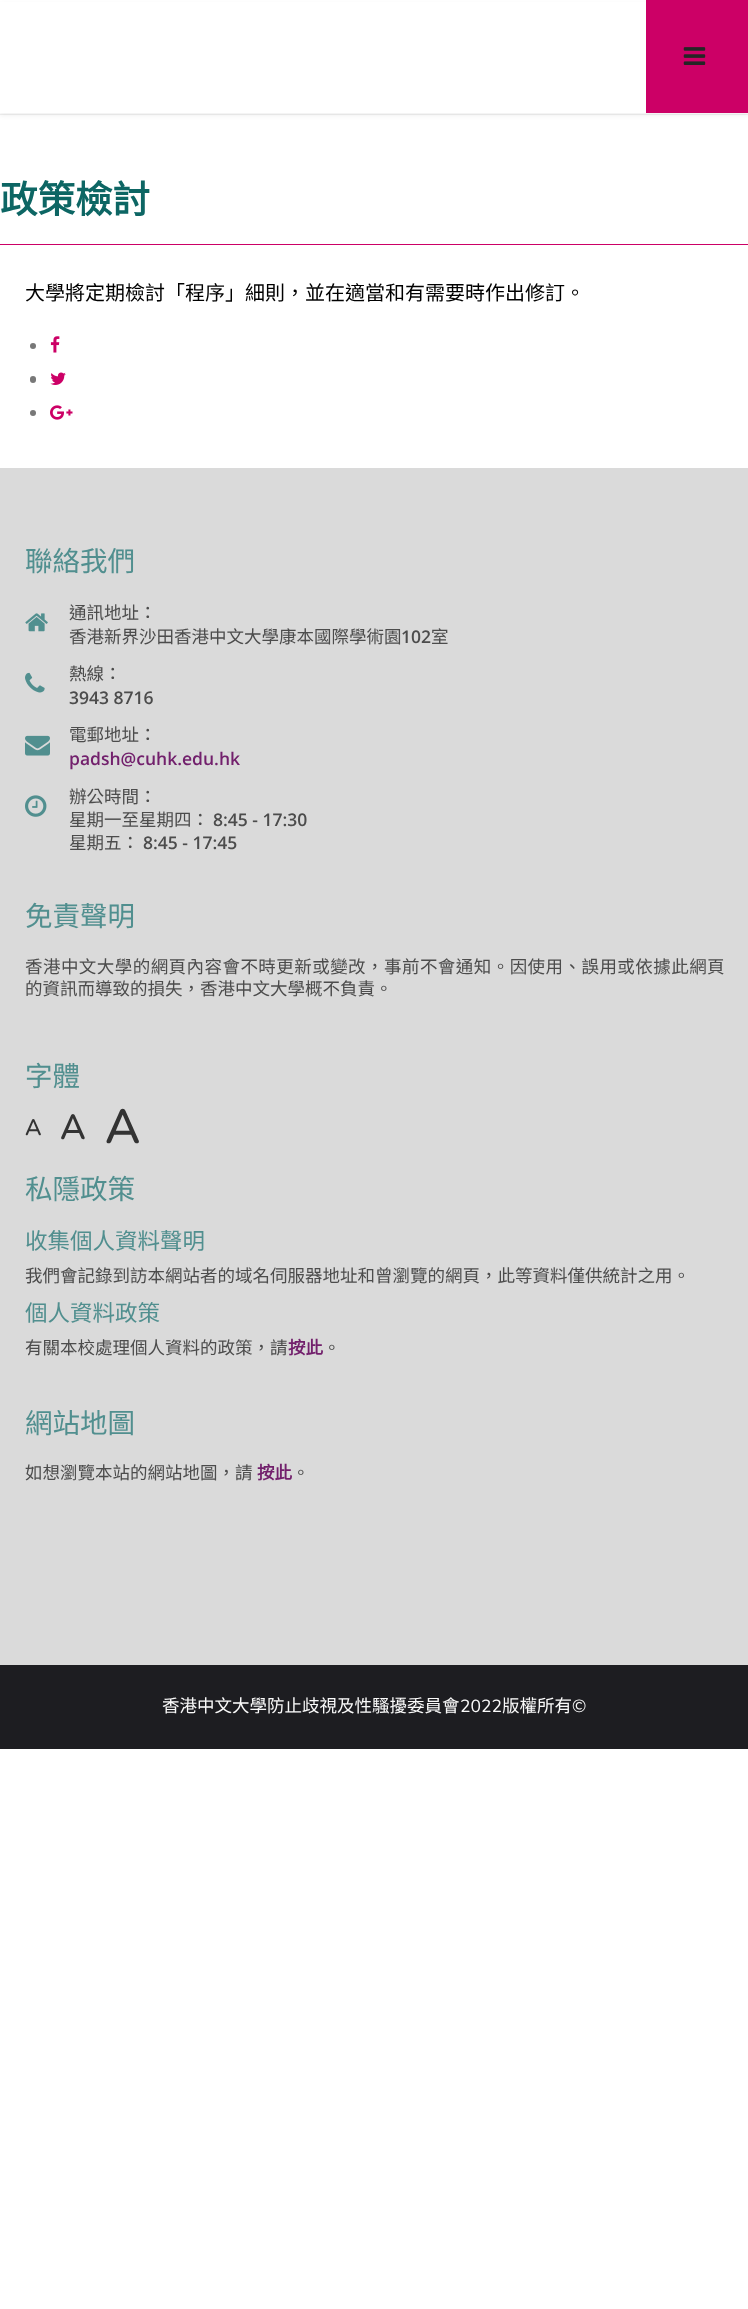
async function draw(canvas) {
  canvas.width = 748;
  canvas.height = 2309;
  const ctx = canvas.getContext('2d');
  ctx.miterLimit = 4;
  ctx.fontKerning = 'normal';
  function label(s, x, y, font, color) {
    ctx.font = font;
    ctx.fillStyle = color;
    ctx.fillText(s, x, y);
  }
  function rect(x, y, w, h, color) {
    ctx.fillStyle = color;
    ctx.fillRect(x, y, w, h);
  }
  function roundedRect(x, y, w, h, r, color) {
    ctx.fillStyle = color;
    ctx.beginPath();
    ctx.roundRect(x, y, w, h, r);
    ctx.fill();
  }
  async function image(src, x, y, w, h) {
    const img = new Image();
    img.src = src;
    await img.decode();
    ctx.drawImage(img, x, y, w, h);
  }

  rect(0, 0, 748, 2309, '#fff');
  rect(0, 114, 748, 1, '#f0f0f0');
  ctx.fillStyle = '#0000000d';
  ctx.filter = 'blur(2px)';
  ctx.beginPath();
  ctx.rect(0, 4, 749, 112);
  ctx.fill();
  ctx.filter = 'none';
  rect(0, 2, 646, 111, '#fff');
  rect(646, 0, 102, 113, '#c06');
  await image('assets/img1.png', 683, 47, 23, 18);
  label('政策檢討', 0, 213, 'bold 37.5px Noto Sans CJK TC', '#0d6664');
  rect(0, 244, 748, 1, '#c06');
  label('大學將定期檢討「程序」細則，並在適當和有需要時作出修訂。', 25, 300, '20px Noto Sans CJK TC', '#000');
  ctx.fillStyle = '#787878';
  ctx.beginPath();
  ctx.arc(33, 346, 3, 0, 2 * Math.PI);
  ctx.fill();
  await image('assets/img2.png', 50, 336, 10, 17);
  roundedRect(30, 376, 6, 7, 3, '#787878');
  await image('assets/img3.png', 50, 372, 16, 13);
  ctx.beginPath();
  ctx.arc(33, 413, 3, 0, 2 * Math.PI);
  ctx.fill();
  await image('assets/img4.png', 50, 405, 23, 15);
  rect(0, 468, 748, 1197, '#dadada');
  label('聯絡我們', 25, 571, '27.5px Noto Sans CJK TC', '#518f8f');
  await image('assets/img5.png', 25, 613, 23, 19);
  label('通訊地址：', 69, 619, '17.5px Noto Sans CJK TC', '#4c4c4c');
  label('香港新界沙田香港中文大學康本國際學術園', 69, 643, '17.5px Noto Sans CJK TC', '#4c4c4c');
  label('102', 401, 643, '600 17.5px Open Sans', '#4c4c4c');
  label('室', 431, 643, '17.5px Noto Sans CJK TC', '#4c4c4c');
  await image('assets/img6.png', 25, 672, 20, 21);
  label('熱線：', 69, 680, '17.5px Noto Sans CJK TC', '#4c4c4c');
  label('3943 8716', 69, 704, '600 17.5px Open Sans', '#4c4c4c');
  await image('assets/img7.png', 25, 735, 25, 21);
  label('電郵地址：', 69, 741, '17.5px Noto Sans CJK TC', '#4c4c4c');
  label('padsh@cuhk.edu.hk', 69, 765, '600 17.5px Open Sans', '#72206c');
  await image('assets/img8.png', 25, 795, 22, 22);
  label('辦公時間：', 69, 803, '17.5px Noto Sans CJK TC', '#4c4c4c');
  label('星期一至星期四：', 69, 826, '17.5px Noto Sans CJK TC', '#4c4c4c');
  label('8:45 - 17:30', 213, 826, '600 17.5px Open Sans', '#4c4c4c');
  label('星期五：', 69, 849, '17.5px Noto Sans CJK TC', '#4c4c4c');
  label('8:45 - 17:45', 143, 849, '600 17.5px Open Sans', '#4c4c4c');
  label('免責聲明', 25, 926, '27.5px Noto Sans CJK TC', '#518f8f');
  ctx.letterSpacing = '0.45px';
  label('香港中文大學的網頁內容會不時更新或變改，事前不會通知。因使用、誤用或依據此網頁', 25, 973, '17.5px Noto Sans CJK TC', '#4c4c4c');
  ctx.letterSpacing = '0px';
  label('的資訊而導致的損失，香港中文大學概不負責。', 25, 995, '17.5px Noto Sans CJK TC', '#4c4c4c');
  label('字體', 25, 1086, '27.5px Noto Sans CJK TC', '#518f8f');
  label('A', 25, 1135, '600 22.5px Nunito', '#333');
  label('A', 60, 1139, '600 35px Nunito', '#333');
  label('A', 105, 1143, '600 48px Nunito', '#333');
  label('私隱政策', 25, 1199, '27.5px Noto Sans CJK TC', '#518f8f');
  label('收集個人資料聲明', 25, 1249, '22.5px Noto Sans CJK TC', '#518f8f');
  label('我們會記錄到訪本網站者的域名伺服器地址和曾瀏覽的網頁，此等資料僅供統計之用。', 25, 1282, '17.5px Noto Sans CJK TC', '#4c4c4c');
  label('個人資料政策', 25, 1321, '22.5px Noto Sans CJK TC', '#518f8f');
  label('有關本校處理個人資料的政策，請', 25, 1354, '17.5px Noto Sans CJK TC', '#4c4c4c');
  label('按此', 288, 1354, 'bold 17.5px Noto Sans CJK TC', '#72206c');
  label('。', 323, 1354, '17.5px Noto Sans CJK TC', '#4c4c4c');
  label('網站地圖', 25, 1433, '27.5px Noto Sans CJK TC', '#518f8f');
  label('如想瀏覽本站的網站地圖，請', 25, 1479, '17.5px Noto Sans CJK TC', '#4c4c4c');
  label('按此', 257, 1479, 'bold 17.5px Noto Sans CJK TC', '#72206c');
  label('。', 292, 1479, '17.5px Noto Sans CJK TC', '#4c4c4c');
  rect(0, 1665, 748, 84, '#1d1d21');
  label('香港中文大學防止歧視及性騷擾委員會', 162, 1712, '17.5px Noto Sans CJK TC', '#fafafa');
  label('2022', 460, 1712, '17.5px Nunito', '#fafafa');
  label('版權所有', 502, 1712, '17.5px Noto Sans CJK TC', '#fafafa');
  label('©', 572, 1712, '17.5px Nunito', '#fafafa');
}

draw(document.querySelector('canvas'));
